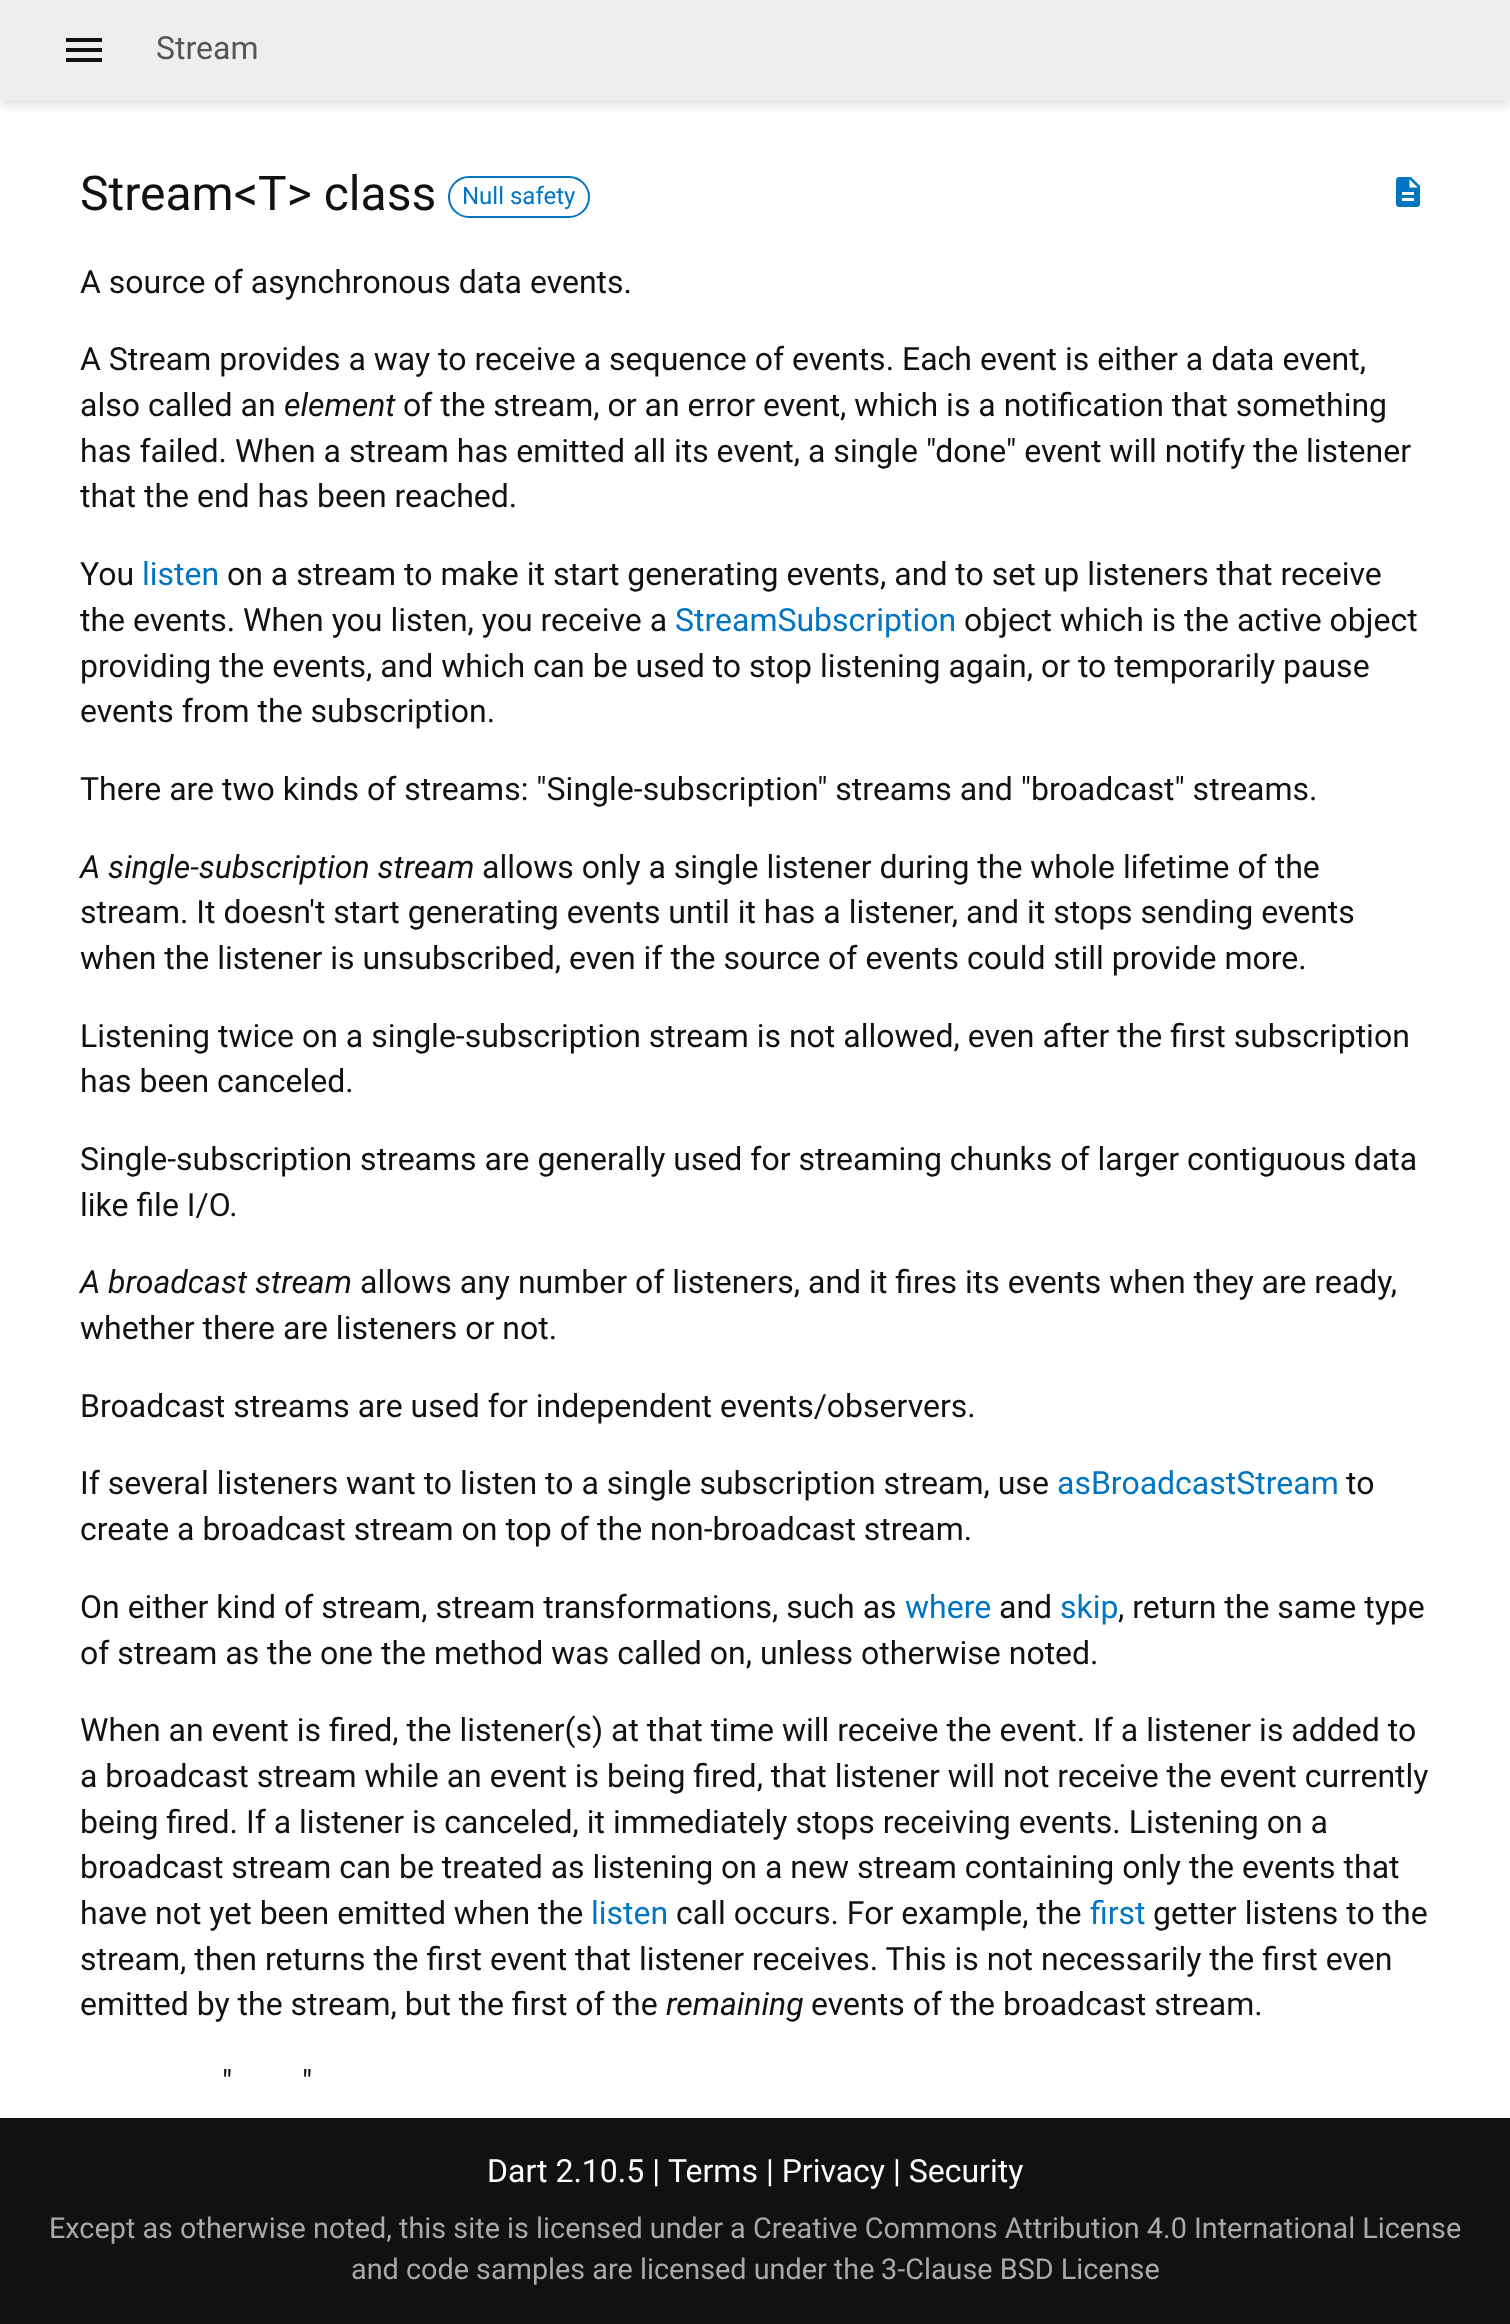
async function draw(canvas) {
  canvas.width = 1510;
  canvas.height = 2324;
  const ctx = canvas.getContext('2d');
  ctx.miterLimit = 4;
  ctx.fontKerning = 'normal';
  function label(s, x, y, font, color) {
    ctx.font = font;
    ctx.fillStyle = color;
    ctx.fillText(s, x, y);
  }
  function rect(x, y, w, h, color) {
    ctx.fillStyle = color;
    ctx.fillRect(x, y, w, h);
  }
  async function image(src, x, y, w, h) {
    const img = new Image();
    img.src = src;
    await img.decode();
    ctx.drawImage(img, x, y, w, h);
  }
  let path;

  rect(0, 0, 1510, 2324, '#fff');
  ctx.fillStyle = '#0000001a';
  ctx.filter = 'blur(5px)';
  ctx.beginPath();
  ctx.rect(0, 6, 1510, 100);
  ctx.fill();
  ctx.filter = 'none';
  rect(0, 0, 1510, 100, '#eee');
  ctx.fillStyle = '#111';
  path = new Path2D('M66 62H102V58H66ZM66 52H102V48H66ZM66 38V42H102V38Z');
  ctx.fill(path);
  label('Stream', 156, 59, '32px Roboto', '#555');
  label('Stream<T> class', 80, 210, '48px Roboto', '#111');
  ctx.beginPath();
  ctx.roundRect(449, 177, 140, 40, 20);
  ctx.strokeStyle = '#0175c2';
  ctx.lineWidth = 2;
  ctx.stroke();
  label('Null safety', 462, 204, '24px Roboto', '#0175c2');
  await image('assets/img1.png', 1395, 177, 26, 30);
  label('A source of asynchronous data events.', 80, 293, '32px Roboto', '#111');
  label('A Stream provides a way to receive a sequence of events. Each event is either a data event,', 80, 370, '32px Roboto', '#111');
  label('also called an', 80, 416, '32px Roboto', '#111');
  label('element', 284, 416, 'italic 32px Roboto', '#111');
  label('of the stream, or an error event, which is a notification that something', 403, 416, '32px Roboto', '#111');
  label('has failed. When a stream has emitted all its event, a single "done" event will notify the listener', 80, 462, '32px Roboto', '#111');
  label('that the end has been reached.', 80, 507, '32px Roboto', '#111');
  label('You', 80, 585, '32px Roboto', '#111');
  label('listen', 142, 585, '32px Roboto', '#0175c2');
  label('on a stream to make it start generating events, and to set up listeners that receive', 227, 585, '32px Roboto', '#111');
  label('the events. When you listen, you receive a', 80, 631, '32px Roboto', '#111');
  label('StreamSubscription', 675, 631, '32px Roboto', '#0175c2');
  label('object which is the active object', 964, 631, '32px Roboto', '#111');
  label('providing the events, and which can be used to stop listening again, or to temporarily pause', 80, 677, '32px Roboto', '#111');
  label('events from the subscription.', 80, 722, '32px Roboto', '#111');
  label('There are two kinds of streams: "Single-subscription" streams and "broadcast" streams.', 80, 800, '32px Roboto', '#111');
  label('A single-subscription stream', 80, 878, 'italic 32px Roboto', '#111');
  label('allows only a single listener during the whole lifetime of the', 482, 878, '32px Roboto', '#111');
  label('stream. It doesn\'t start generating events until it has a listener, and it stops sending events', 80, 923, '32px Roboto', '#111');
  label('when the listener is unsubscribed, even if the source of events could still provide more.', 80, 969, '32px Roboto', '#111');
  label('Listening twice on a single-subscription stream is not allowed, even after the first subscription', 80, 1047, '32px Roboto', '#111');
  label('has been canceled.', 80, 1092, '32px Roboto', '#111');
  label('Single-subscription streams are generally used for streaming chunks of larger contiguous data', 80, 1170, '32px Roboto', '#111');
  label('like file I/O.', 80, 1216, '32px Roboto', '#111');
  label('A broadcast stream', 80, 1293, 'italic 32px Roboto', '#111');
  label('allows any number of listeners, and it fires its events when they are ready,', 360, 1293, '32px Roboto', '#111');
  label('whether there are listeners or not.', 80, 1339, '32px Roboto', '#111');
  label('Broadcast streams are used for independent events/observers.', 80, 1417, '32px Roboto', '#111');
  label('If several listeners want to listen to a single subscription stream, use', 80, 1494, '32px Roboto', '#111');
  label('asBroadcastStream', 1057, 1494, '32px Roboto', '#0175c2');
  label('to', 1346, 1494, '32px Roboto', '#111');
  label('create a broadcast stream on top of the non-broadcast stream.', 80, 1540, '32px Roboto', '#111');
  label('On either kind of stream, stream transformations, such as', 80, 1618, '32px Roboto', '#111');
  label('where', 905, 1618, '32px Roboto', '#0175c2');
  label('and', 999, 1618, '32px Roboto', '#111');
  label('skip', 1060, 1618, '32px Roboto', '#0175c2');
  label(', return the same type', 1118, 1618, '32px Roboto', '#111');
  label('of stream as the one the method was called on, unless otherwise noted.', 80, 1664, '32px Roboto', '#111');
  label('When an event is fired, the listener(s) at that time will receive the event. If a listener is added to', 80, 1741, '32px Roboto', '#111');
  label('a broadcast stream while an event is being fired, that listener will not receive the event currently', 80, 1787, '32px Roboto', '#111');
  label('being fired. If a listener is canceled, it immediately stops receiving events. Listening on a', 80, 1833, '32px Roboto', '#111');
  label('broadcast stream can be treated as listening on a new stream containing only the events that', 80, 1878, '32px Roboto', '#111');
  label('have not yet been emitted when the', 80, 1924, '32px Roboto', '#111');
  label('listen', 591, 1924, '32px Roboto', '#0175c2');
  label('call occurs. For example, the', 676, 1924, '32px Roboto', '#111');
  label('first', 1090, 1924, '32px Roboto', '#0175c2');
  label('getter listens to the', 1153, 1924, '32px Roboto', '#111');
  label('stream, then returns the first event that listener receives. This is not necessarily the first even', 80, 1970, '32px Roboto', '#111');
  label('emitted by the stream, but the first of the', 80, 2015, '32px Roboto', '#111');
  label('remaining', 666, 2015, 'italic 32px Roboto', '#111');
  label('events of the broadcast stream.', 811, 2015, '32px Roboto', '#111');
  label('"', 222, 2093, '32px Roboto', '#111');
  label('"', 302, 2093, '32px Roboto', '#111');
  rect(0, 2118, 1510, 206, '#111');
  label('Terms | Privacy | Security', 668, 2182, '32px Roboto', '#fff');
  label('Except as otherwise noted, this site is licensed under a', 49, 2238, '28.8px Roboto', '#a9a9a9');
  label('Creative Commons Attribution 4.0 International License', 753, 2238, '28.8px Roboto', '#a9a9a9');
  label('and code samples are licensed under the', 351, 2279, '28.8px Roboto', '#a9a9a9');
  label('3-Clause BSD License', 881, 2279, '28.8px Roboto', '#a9a9a9');
  label('Dart 2.10.5 |', 487, 2182, '32px Roboto', '#fff');
}

draw(document.querySelector('canvas'));
